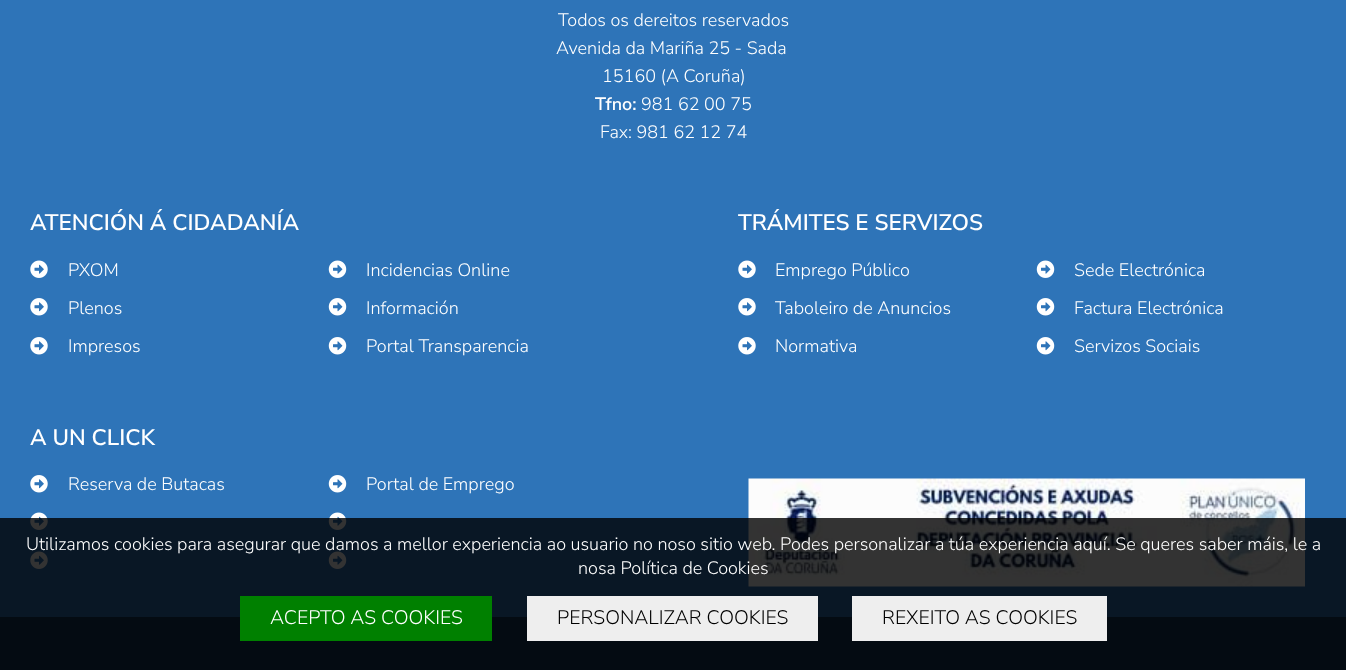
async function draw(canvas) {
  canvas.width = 1346;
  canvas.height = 670;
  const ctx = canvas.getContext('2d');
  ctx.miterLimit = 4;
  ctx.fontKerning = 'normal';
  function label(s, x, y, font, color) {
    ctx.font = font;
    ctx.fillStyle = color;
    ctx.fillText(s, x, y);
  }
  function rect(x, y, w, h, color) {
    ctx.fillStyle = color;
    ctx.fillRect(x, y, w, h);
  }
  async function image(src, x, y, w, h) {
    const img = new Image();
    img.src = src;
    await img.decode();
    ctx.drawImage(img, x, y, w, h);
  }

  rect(0, 0, 1346, 670, '#2e74b8');
  label('Todos os dereitos reservados', 558, 26, '200 18px Nunito Sans', '#fff');
  label('Avenida da Mariña 25 - Sada', 556, 54, '200 18px Nunito Sans', '#fff');
  label('15160 (A Coruña)', 602, 82, '200 18px Nunito Sans', '#fff');
  label('Tfno:', 595, 110, '200 18px "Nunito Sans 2"', '#fff');
  label('981 62 00 75', 641, 110, '200 18px Nunito Sans', '#fff');
  label('Fax: 981 62 12 74', 600, 138, '200 18px Nunito Sans', '#fff');
  label('ATENCIÓN Á CIDADANÍA', 30, 230, '200 22.5px "Nunito Sans 2"', '#fff');
  await image('assets/img1.png', 30, 260, 18, 18);
  label('PXOM', 68, 276, '200 18px Nunito Sans', '#fff');
  await image('assets/img2.png', 328, 260, 19, 18);
  label('Incidencias Online', 366, 276, '200 18px Nunito Sans', '#fff');
  await image('assets/img3.png', 30, 298, 18, 18);
  label('Plenos', 68, 314, '200 18px Nunito Sans', '#fff');
  await image('assets/img4.png', 328, 298, 19, 18);
  label('Información', 366, 314, '200 18px Nunito Sans', '#fff');
  await image('assets/img3.png', 30, 337, 18, 18);
  label('Impresos', 68, 352, '200 18px Nunito Sans', '#fff');
  await image('assets/img4.png', 328, 337, 19, 18);
  label('Portal Transparencia', 366, 352, '200 18px Nunito Sans', '#fff');
  label('TRÁMITES E SERVIZOS', 738, 230, '200 22.5px "Nunito Sans 2"', '#fff');
  await image('assets/img1.png', 738, 260, 18, 18);
  label('Emprego Público', 775, 276, '200 18px Nunito Sans', '#fff');
  await image('assets/img2.png', 1036, 260, 19, 18);
  label('Sede Electrónica', 1074, 276, '200 18px Nunito Sans', '#fff');
  await image('assets/img3.png', 738, 298, 18, 18);
  label('Taboleiro de Anuncios', 775, 314, '200 18px Nunito Sans', '#fff');
  await image('assets/img4.png', 1036, 298, 19, 18);
  label('Factura Electrónica', 1074, 314, '200 18px Nunito Sans', '#fff');
  await image('assets/img3.png', 738, 337, 18, 18);
  label('Normativa', 775, 352, '200 18px Nunito Sans', '#fff');
  await image('assets/img4.png', 1036, 337, 19, 18);
  label('Servizos Sociais', 1074, 352, '200 18px Nunito Sans', '#fff');
  label('A UN CLICK', 30, 445, '200 22.5px "Nunito Sans 2"', '#fff');
  await image('assets/img3.png', 30, 475, 18, 18);
  label('Reserva de Butacas', 68, 490, '200 18px Nunito Sans', '#fff');
  await image('assets/img4.png', 328, 475, 19, 18);
  label('Portal de Emprego', 366, 490, '200 18px Nunito Sans', '#fff');
  await image('assets/img1.png', 30, 512, 18, 18);
  await image('assets/img2.png', 328, 512, 19, 18);
  await image('assets/img1.png', 30, 551, 18, 18);
  await image('assets/img2.png', 328, 551, 19, 18);
  await image('assets/img5.png', 748, 478, 557, 109);
  rect(0, 617, 1346, 53, '#173a5c');
  rect(0, 518, 1346, 152, '#000000cc');
  label('Utilizamos cookies para asegurar que damos a mellor experiencia ao usuario no noso sitio web. Podes personalizar a túa experiencia aquí. Se queres saber máis, le a', 26, 550, '200 18px Nunito Sans', '#fff');
  label('nosa Política de Cookies', 578, 574, '200 18px Nunito Sans', '#fff');
  rect(240, 596, 252, 45, '#008000');
  label('ACEPTO AS COOKIES', 270, 624, '200 19.5px Nunito Sans', '#fff');
  rect(527, 596, 291, 45, '#eee');
  label('PERSONALIZAR COOKIES', 557, 624, '200 19.5px Nunito Sans', '#000');
  rect(852, 596, 255, 45, '#eee');
  label('REXEITO AS COOKIES', 882, 624, '200 19.5px Nunito Sans', '#000');
}

draw(document.querySelector('canvas'));
